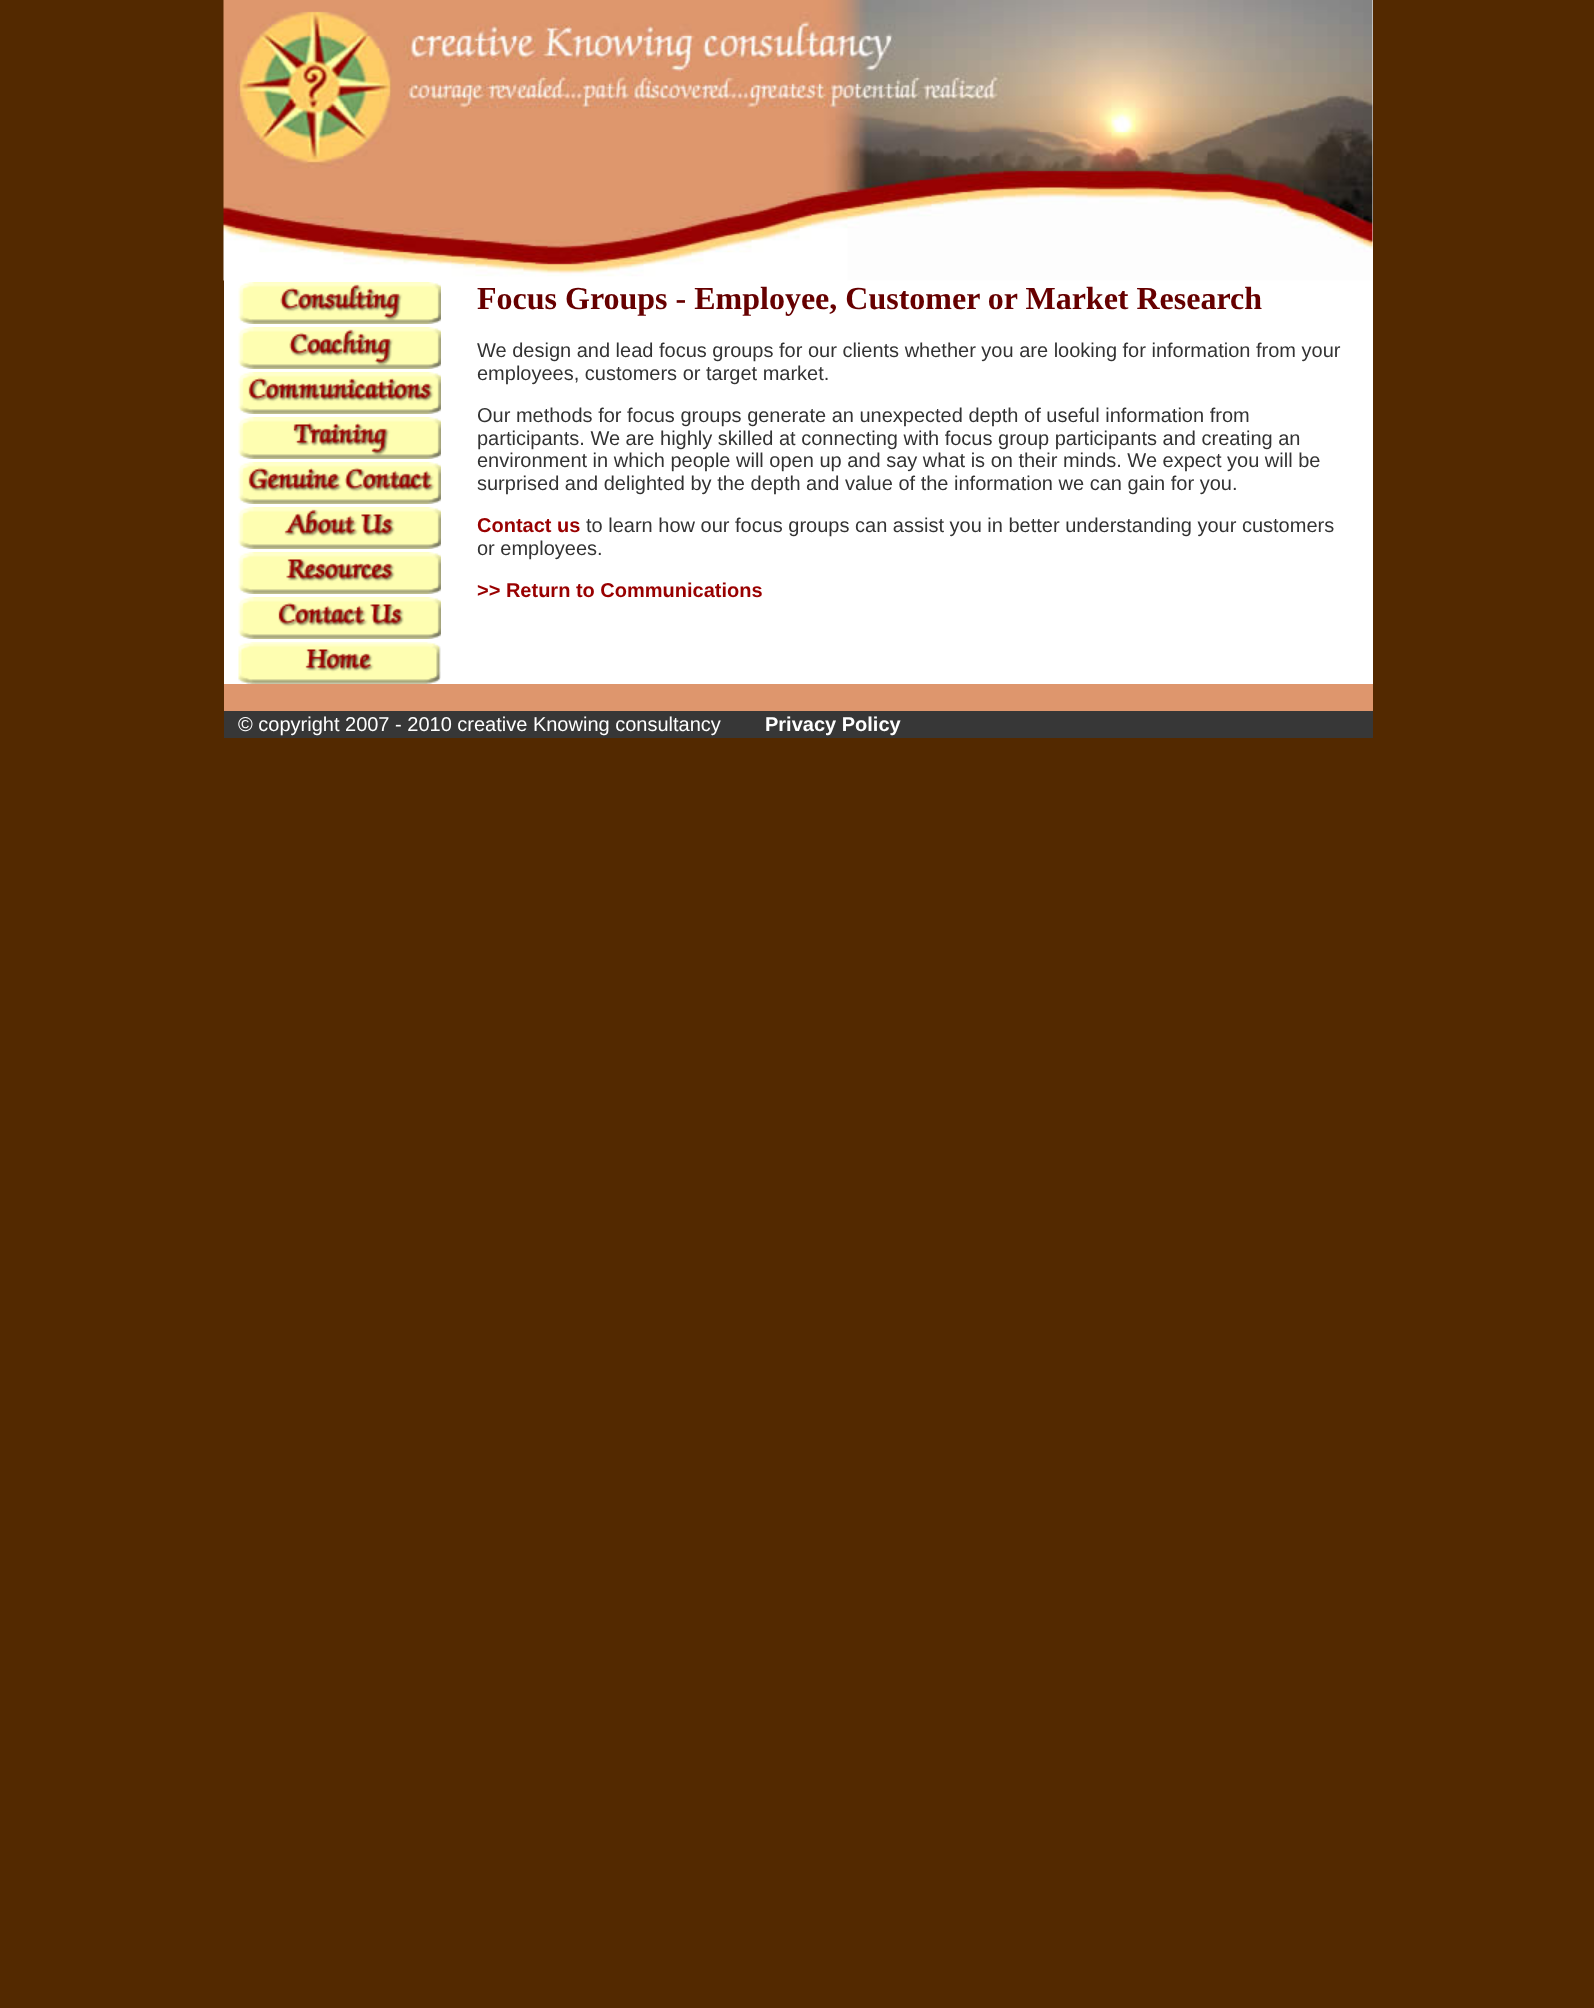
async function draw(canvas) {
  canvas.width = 1594;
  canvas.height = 2008;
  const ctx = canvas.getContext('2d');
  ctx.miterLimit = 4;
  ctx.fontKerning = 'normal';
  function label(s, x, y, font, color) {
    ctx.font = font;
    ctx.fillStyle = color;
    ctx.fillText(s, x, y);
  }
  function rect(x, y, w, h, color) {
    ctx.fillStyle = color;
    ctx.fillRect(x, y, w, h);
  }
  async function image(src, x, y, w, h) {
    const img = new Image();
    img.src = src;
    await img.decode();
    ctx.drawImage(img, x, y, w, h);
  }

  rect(0, 0, 1594, 2008, '#532900');
  rect(224, 0, 1149, 684, '#fff');
  await image('assets/img1.png', 223, 0, 1150, 281);
  await image('assets/img2.png', 238, 282, 203, 42);
  await image('assets/img3.png', 238, 327, 203, 42);
  await image('assets/img4.png', 238, 372, 203, 42);
  await image('assets/img5.png', 238, 417, 203, 42);
  await image('assets/img6.png', 238, 462, 203, 42);
  await image('assets/img7.png', 238, 507, 203, 42);
  await image('assets/img8.png', 238, 552, 203, 42);
  await image('assets/img9.png', 238, 597, 203, 42);
  await image('assets/img10.png', 238, 642, 203, 42);
  label('Focus Groups - Employee, Customer or Market Research', 477, 309, 'bold 32px Liberation Serif', '#600');
  label('We design and lead focus groups for our clients whether you are looking for information from your', 477, 357, '20px Liberation Sans', '#333');
  label('employees, customers or target market.', 477, 380, '20px Liberation Sans', '#333');
  label('Our methods for focus groups generate an unexpected depth of useful information from', 477, 422, '20px Liberation Sans', '#333');
  label('participants. We are highly skilled at connecting with focus group participants and creating an', 477, 445, '20px Liberation Sans', '#333');
  label('environment in which people will open up and say what is on their minds. We expect you will be', 477, 467, '20px Liberation Sans', '#333');
  label('surprised and delighted by the depth and value of the information we can gain for you.', 477, 490, '20px Liberation Sans', '#333');
  label('Contact us', 477, 532, 'bold 20px Liberation Sans', '#900');
  label('to learn how our focus groups can assist you in better understanding your customers', 586, 532, '20px Liberation Sans', '#333');
  label('or employees.', 477, 555, '20px Liberation Sans', '#333');
  label('>> Return to Communications', 477, 597, 'bold 20px Liberation Sans', '#900');
  rect(224, 684, 1149, 27, '#de966d');
  rect(224, 711, 1149, 27, '#373737');
  label('© copyright 2007 - 2010 creative Knowing consultancy', 238, 731, '20px Liberation Sans', '#fff');
  label('Privacy Policy', 765, 731, 'bold 20px Liberation Sans', '#fff');
}

draw(document.querySelector('canvas'));
